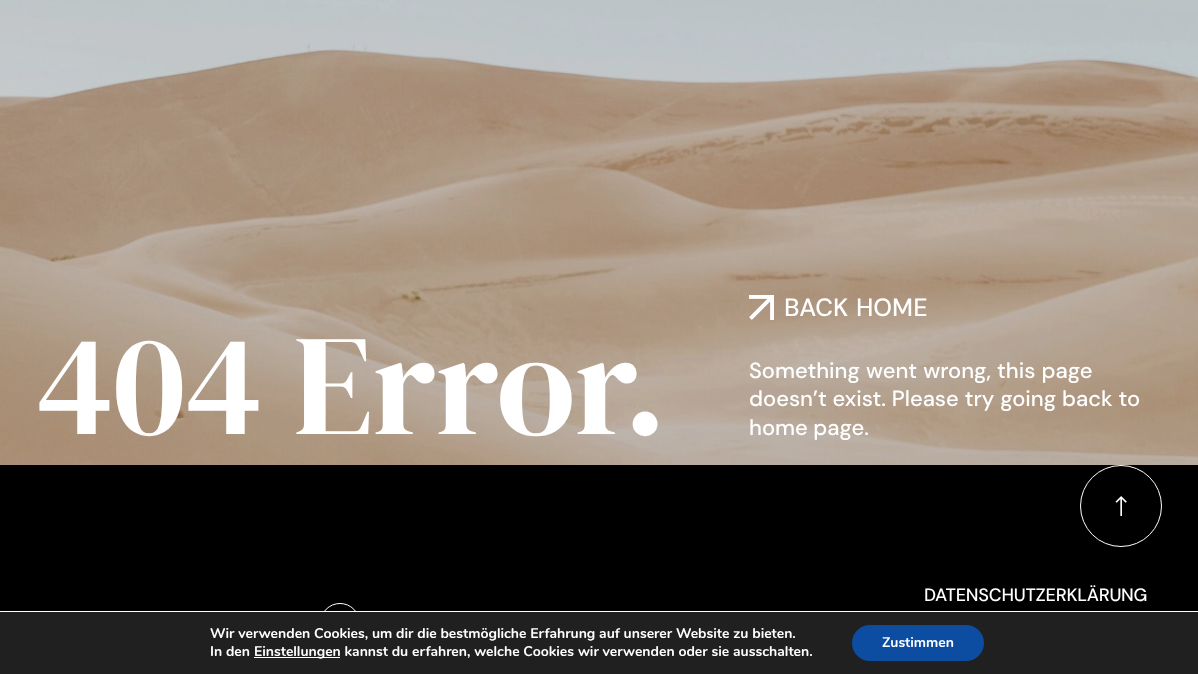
async function draw(canvas) {
  canvas.width = 1198;
  canvas.height = 674;
  const ctx = canvas.getContext('2d');
  ctx.miterLimit = 4;
  ctx.fontKerning = 'normal';
  function label(s, x, y, font, color) {
    ctx.font = font;
    ctx.fillStyle = color;
    ctx.fillText(s, x, y);
  }
  function rect(x, y, w, h, color) {
    ctx.fillStyle = color;
    ctx.fillRect(x, y, w, h);
  }
  function roundedRect(x, y, w, h, r, color) {
    ctx.fillStyle = color;
    ctx.beginPath();
    ctx.roundRect(x, y, w, h, r);
    ctx.fill();
  }
  async function image(src, x, y, w, h) {
    const img = new Image();
    img.src = src;
    await img.decode();
    ctx.drawImage(img, x, y, w, h);
  }

  rect(0, 0, 1198, 674, '#000');
  await image('assets/img1.png', 0, 0, 1198, 465);
  ctx.letterSpacing = '-0.25px';
  label('404 Error.', 36, 434, '143.75px DM Serif Display', '#fff');
  await image('assets/img2.png', 749, 295, 25, 25);
  ctx.letterSpacing = '0px';
  ctx.wordSpacing = '1px';
  label('BACK HOME', 784, 316, '500 25px DM Sans', '#fff');
  ctx.wordSpacing = '0.5px';
  label('Something went wrong, this page', 749, 378, '500 22px "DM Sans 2"', '#fff');
  ctx.wordSpacing = '0.25px';
  label('doesn’t exist. Please try going back to', 749, 406, '500 22px "DM Sans 2"', '#fff');
  ctx.wordSpacing = '0px';
  label('home page.', 749, 435, '500 22px "DM Sans 2"', '#fff');
  ctx.beginPath();
  ctx.arc(1121, 506, 40.5, 0, 2 * Math.PI);
  ctx.strokeStyle = '#fff';
  ctx.stroke();
  await image('assets/img3.png', 1115, 496, 12, 20);
  ctx.letterSpacing = '-0.25px';
  label('DATENSCHUTZERKLÄRUNG', 924, 601, '500 18px DM Sans', '#fff');
  ctx.beginPath();
  ctx.arc(340, 623, 19.5, 0, 2 * Math.PI);
  ctx.stroke();
  rect(0, 612, 1198, 62, '#202020');
  rect(0, 611, 1198, 1, '#fff');
  ctx.letterSpacing = '0px';
  label('Wir verwenden Cookies, um dir die bestmögliche Erfahrung auf unserer Website zu bieten.', 210, 638, 'bold 14px Nunito', '#fff');
  label('In den', 210, 656, 'bold 14px Nunito', '#fff');
  rect(254, 657, 86, 1, '#fff');
  label('Einstellungen kannst du erfahren, welche Cookies wir verwenden oder sie ausschalten.', 254, 656, 'bold 14px Nunito', '#fff');
  roundedRect(852, 625, 132, 36, 18, '#0c4da2');
  label('Zustimmen', 882, 647, 'bold 14px Nunito', '#fff');
}

draw(document.querySelector('canvas'));
